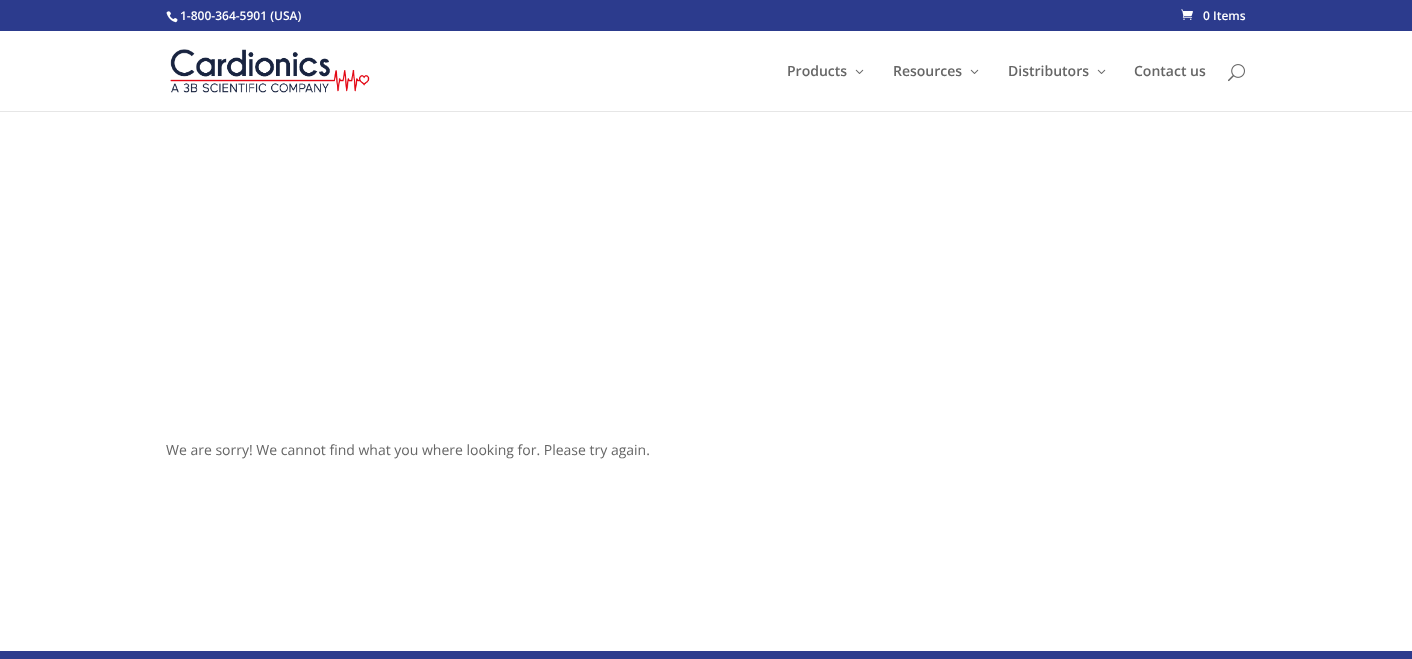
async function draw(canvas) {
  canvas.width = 1412;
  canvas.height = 659;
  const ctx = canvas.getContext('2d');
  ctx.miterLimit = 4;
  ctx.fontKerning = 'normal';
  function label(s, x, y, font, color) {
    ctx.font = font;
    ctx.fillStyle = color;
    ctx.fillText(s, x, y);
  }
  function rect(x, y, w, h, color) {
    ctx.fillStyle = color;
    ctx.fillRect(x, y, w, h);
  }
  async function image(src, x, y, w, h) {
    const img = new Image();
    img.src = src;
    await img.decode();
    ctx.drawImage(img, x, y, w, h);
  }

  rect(0, 0, 1412, 659, '#fff');
  rect(0, 0, 1412, 31, '#2c3b8d');
  await image('assets/img1.png', 166, 11, 12, 12);
  label('1-800-364-5901 (USA)', 180, 20, '600 12px Open Sans', '#fff');
  await image('assets/img2.png', 1181, 9, 12, 11);
  label('0 Items', 1203, 20, '600 12px Open Sans', '#fff');
  rect(0, 111, 1412, 1, '#e6e6e6');
  await image('assets/img3.png', 170, 49, 200, 44);
  label('Products', 787, 76, '600 14px Open Sans', '#666');
  await image('assets/img4.png', 855, 69, 9, 5);
  label('Resources', 893, 76, '600 14px Open Sans', '#666');
  await image('assets/img4.png', 970, 69, 9, 5);
  label('Distributors', 1008, 76, '600 14px Open Sans', '#666');
  await image('assets/img4.png', 1097, 69, 9, 5);
  label('Contact us', 1134, 76, '600 14px Open Sans', '#666');
  await image('assets/img5.png', 1228, 64, 17, 18);
  label('We are sorry! We cannot find what you where looking for. Please try again.', 166, 455, '14px Open Sans', '#666');
  rect(0, 651, 1412, 8, '#2c3b8d');
}

draw(document.querySelector('canvas'));
